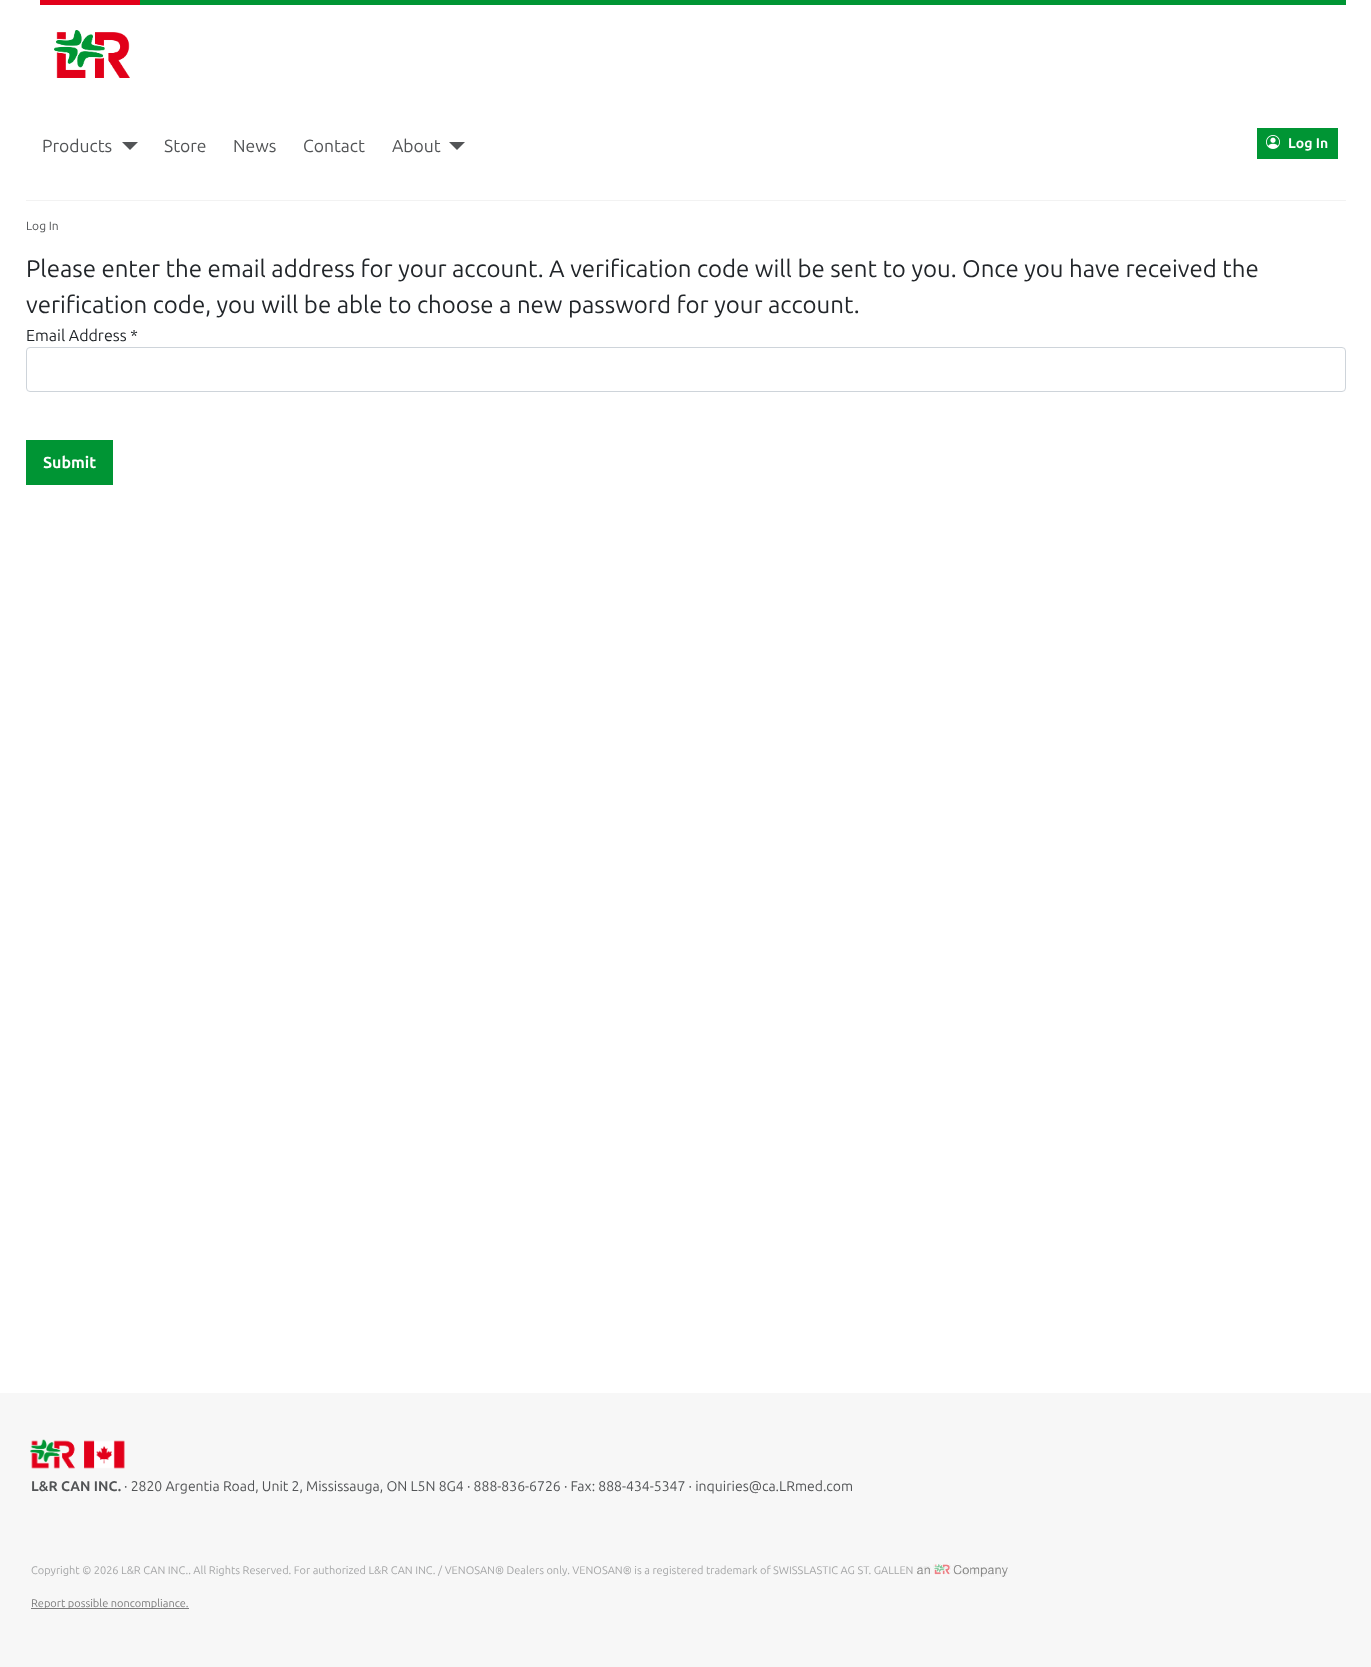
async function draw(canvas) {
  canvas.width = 1371;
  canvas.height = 1667;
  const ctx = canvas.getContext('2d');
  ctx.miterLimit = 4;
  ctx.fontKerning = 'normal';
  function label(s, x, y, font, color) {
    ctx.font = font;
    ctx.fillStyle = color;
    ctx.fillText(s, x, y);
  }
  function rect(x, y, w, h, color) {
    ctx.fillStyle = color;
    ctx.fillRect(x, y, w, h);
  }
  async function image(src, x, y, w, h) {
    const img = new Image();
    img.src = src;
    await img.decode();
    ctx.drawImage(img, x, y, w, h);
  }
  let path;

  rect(0, 0, 1371, 1667, '#fff');
  rect(40, 0, 100, 5, '#e2001a');
  rect(140, 0, 1206, 5, '#009534');
  await image('assets/img1.png', 54, 30, 76, 48);
  label('Products', 42, 152, '17.5px Ubuntu', '#525456');
  path = new Path2D('M122 142H138L130 150Z');
  ctx.fill(path);
  label('Store', 164, 152, '17.5px Ubuntu', '#525456');
  label('News', 233, 152, '17.5px Ubuntu', '#525456');
  label('Contact', 303, 152, '17.5px Ubuntu', '#525456');
  label('About', 392, 152, '17.5px Ubuntu', '#525456');
  path = new Path2D('M449 142H465L457 150Z');
  ctx.fill(path);
  rect(1257, 128, 81, 31, '#009534');
  await image('assets/img2.png', 1266, 135, 14, 14);
  label('Log In', 1288, 148, 'bold 14px Ubuntu', '#fff');
  rect(26, 200, 1320, 1, '#f2f2f2');
  label('Log In', 26, 230, '12px Ubuntu', '#525456');
  label('Please enter the email address for your account. A verification code will be sent to you. Once you have received the', 26, 277, '24px Ubuntu', '#22262a');
  label('verification code, you will be able to choose a new password for your account.', 26, 313, '24px Ubuntu', '#22262a');
  label('Email Address *', 26, 341, '16px Ubuntu', '#22262a');
  ctx.beginPath();
  ctx.roundRect(26.5, 347.5, 1319, 44, 3.5);
  ctx.strokeStyle = '#ced4da';
  ctx.stroke();
  rect(26, 440, 87, 45, '#009534');
  label('Submit', 43, 468, 'bold 16px Ubuntu', '#fff');
  rect(0, 1393, 1371, 274, '#f7f7f7');
  await image('assets/img3.png', 30, 1439, 95, 30);
  label('L&R CAN INC.', 31, 1491, 'bold 14px Ubuntu', '#525456');
  label('· 2820 Argentia Road, Unit 2, Mississauga, ON L5N 8G4 · 888-836-6726 · Fax: 888-434-5347 · inquiries@ca.LRmed.com', 124, 1491, '14px Ubuntu', '#525456');
  label('Copyright © 2026 L&R CAN INC.. All Rights Reserved. For authorized L&R CAN INC. / VENOSAN® Dealers only. VENOSAN® is a registered trademark of SWISSLASTIC AG ST. GALLEN', 31, 1574, '11px Ubuntu', '#a5a6a7');
  await image('assets/img4.png', 917, 1564, 91, 13);
  rect(31, 1608, 158, 1, '#7c7c7c');
  label('Report possible noncompliance.', 31, 1607, '11px Ubuntu', '#7b7b7b');
}

draw(document.querySelector('canvas'));
